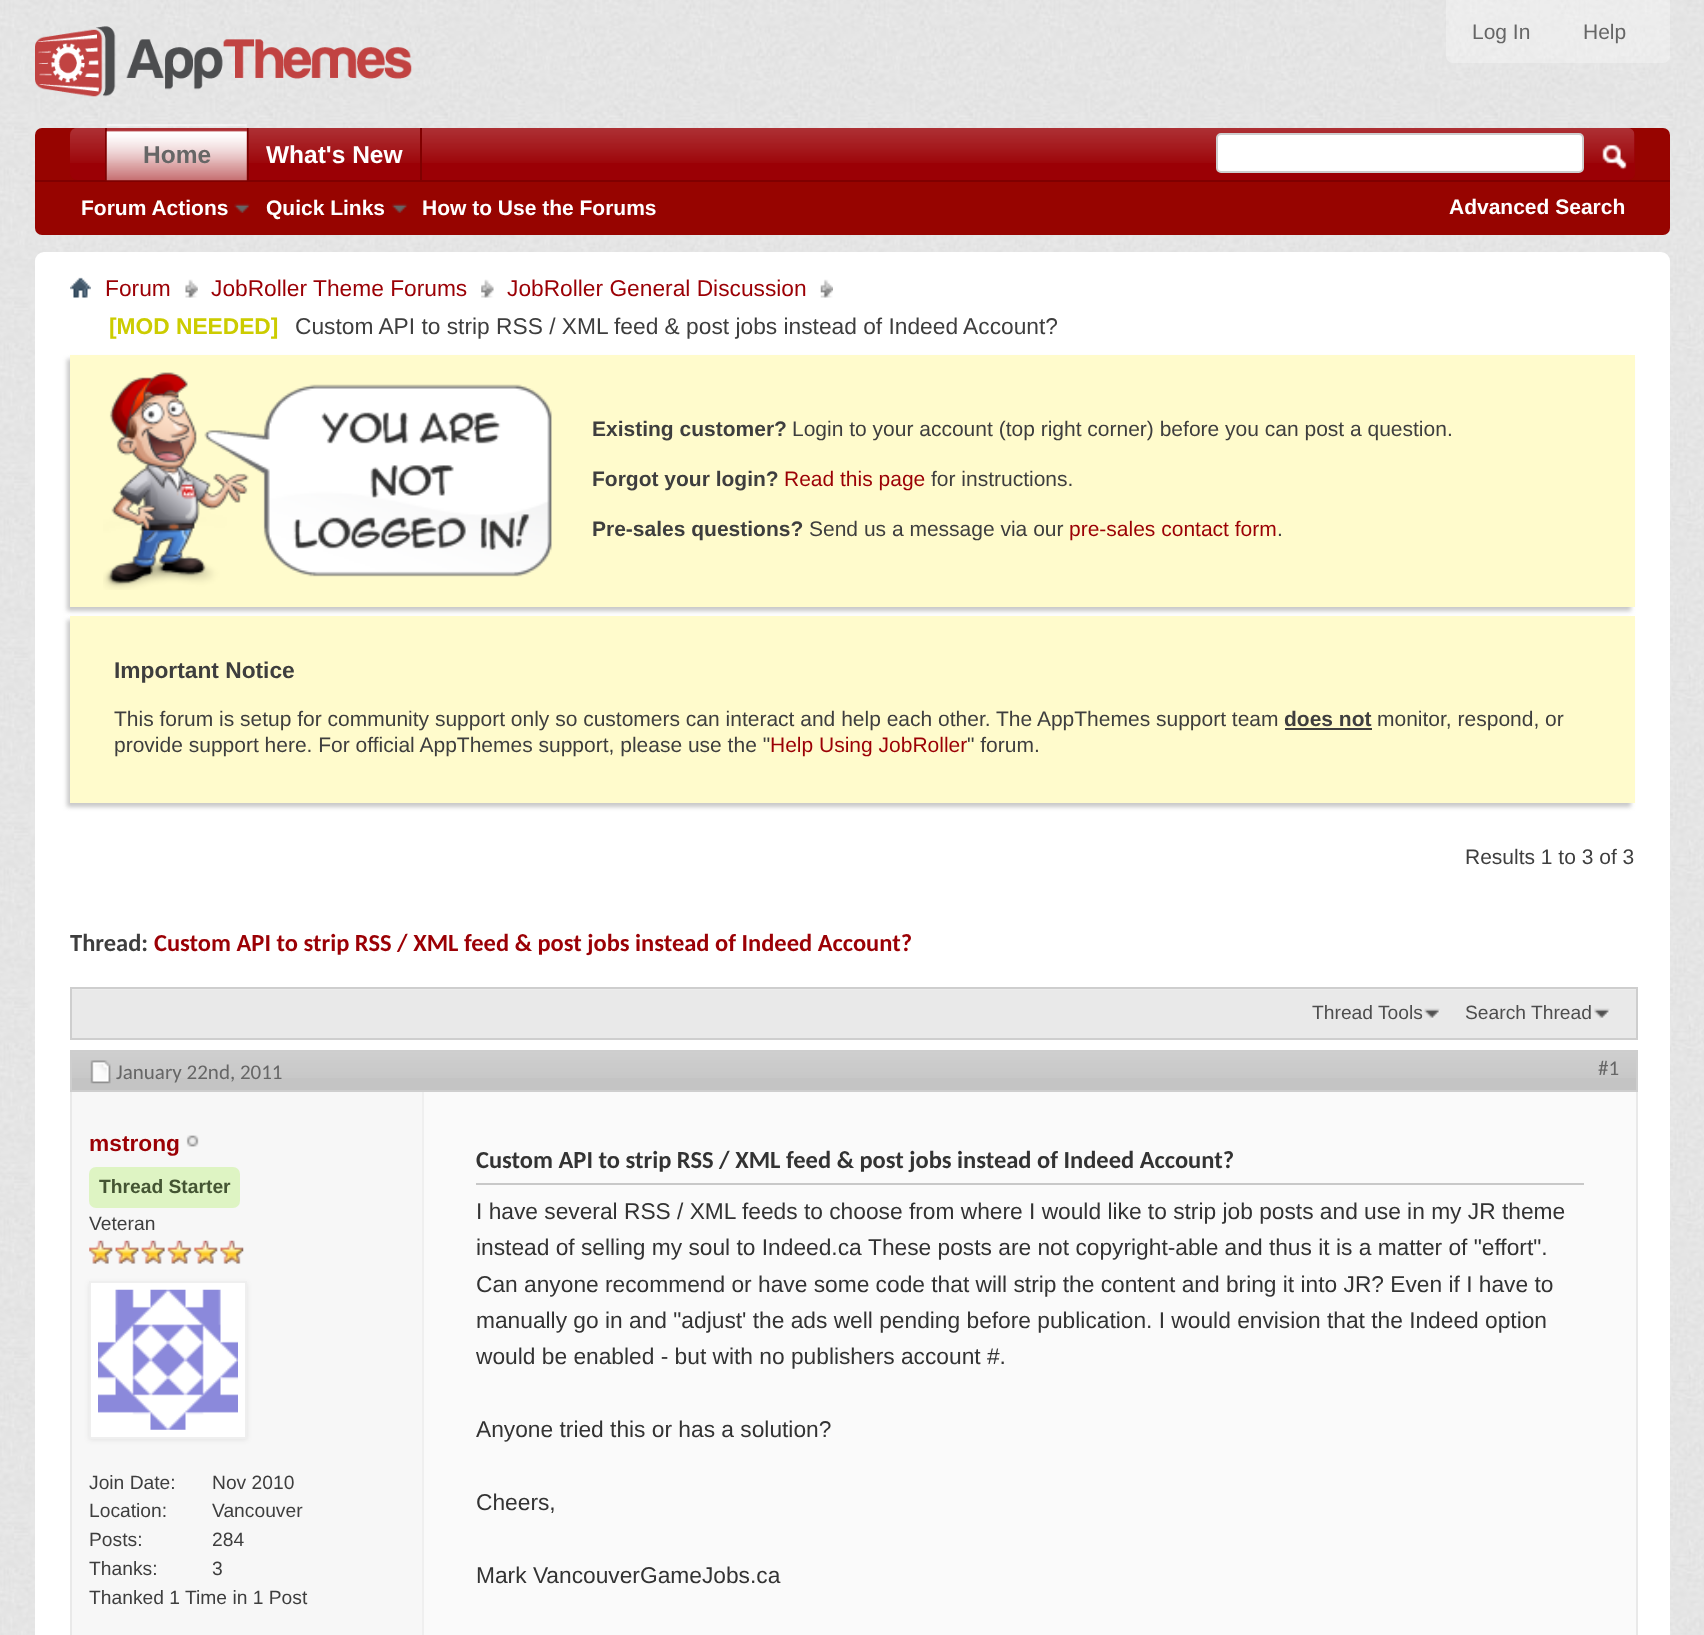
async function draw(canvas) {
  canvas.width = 1704;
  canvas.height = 1635;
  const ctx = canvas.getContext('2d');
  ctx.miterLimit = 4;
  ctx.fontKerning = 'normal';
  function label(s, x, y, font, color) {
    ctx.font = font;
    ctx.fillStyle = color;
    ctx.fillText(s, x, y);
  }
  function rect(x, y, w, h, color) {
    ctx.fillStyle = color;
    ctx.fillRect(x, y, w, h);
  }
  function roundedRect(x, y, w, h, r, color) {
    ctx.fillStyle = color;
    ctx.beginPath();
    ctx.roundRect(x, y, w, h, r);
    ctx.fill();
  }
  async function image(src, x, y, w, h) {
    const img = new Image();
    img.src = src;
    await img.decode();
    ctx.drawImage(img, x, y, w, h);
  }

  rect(0, 0, 1704, 1635, '#fff');
  await image('assets/img1.png', 0, 0, 1704, 1635);
  await image('assets/img2.png', 35, 26, 377, 71);
  ctx.fillStyle = '#ffffff4d';
  ctx.beginPath();
  ctx.roundRect(1446, 0, 224, 63, [0, 0, 7, 7]);
  ctx.fill();
  label('Log In', 1472, 39, '21px Liberation Sans', '#666');
  label('Help', 1583, 39, '21px Liberation Sans', '#666');
  roundedRect(35, 128, 1635, 107, 7, '#970400');
  roundedRect(70, 128, 1565, 52, 7, '#9b0005');
  await image('assets/img3.png', 70, 128, 1565, 35);
  rect(247, 128, 2, 52, '#7f0000');
  rect(105, 128, 2, 52, '#7f0000');
  rect(35, 180, 1635, 2, '#7f0000');
  await image('assets/img4.png', 106, 124, 141, 57);
  label('Home', 143, 163, 'bold 24.5px Liberation Sans', '#666');
  rect(420, 128, 2, 52, '#7f0000');
  rect(249, 128, 171, 35, '#9b0005');
  await image('assets/img5.png', 248, 128, 172, 35);
  label('What\'s New', 266, 163, 'bold 24.5px Liberation Sans', '#fff');
  label('Forum Actions', 81, 215, 'bold 21px Liberation Sans', '#fff');
  await image('assets/img6.png', 234, 203, 16, 10);
  label('Quick Links', 266, 215, 'bold 21px Liberation Sans', '#fff');
  await image('assets/img7.png', 391, 203, 17, 10);
  label('How to Use the Forums', 422, 215, 'bold 21px Liberation Sans', '#fff');
  ctx.beginPath();
  ctx.roundRect(1217, 134, 366, 38, 4);
  ctx.fill();
  ctx.strokeStyle = '#cecece';
  ctx.lineWidth = 2;
  ctx.stroke();
  await image('assets/img8.png', 1602, 144, 25, 26);
  label('Advanced Search', 1449, 214, 'bold 21px Liberation Sans', '#fff');
  roundedRect(35, 252, 1635, 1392, 9, '#fff');
  await image('assets/img9.png', 70, 277, 21, 21);
  await image('assets/img10.png', 185, 279, 13, 19);
  label('Forum', 105, 296, '22.75px Liberation Sans', '#9b0005');
  await image('assets/img11.png', 481, 279, 13, 19);
  label('JobRoller Theme Forums', 211, 296, '22.75px Liberation Sans', '#9b0005');
  await image('assets/img12.png', 820, 279, 13, 19);
  label('JobRoller General Discussion', 507, 296, '22.75px Liberation Sans', '#9b0005');
  label('[MOD NEEDED]', 109, 334, 'bold 22.75px Liberation Sans', '#cc0');
  label('Custom API to strip RSS / XML feed & post jobs instead of Indeed Account?', 295, 334, '22.75px Liberation Sans', '#3e3e3e');
  ctx.fillStyle = '#c8c8c8';
  ctx.filter = 'blur(2px)';
  ctx.beginPath();
  ctx.rect(67, 359, 1564, 252);
  ctx.fill();
  ctx.filter = 'none';
  rect(70, 355, 1565, 252, '#fffbcc');
  await image('assets/img13.png', 103, 372, 449, 218);
  label('Existing customer?', 592, 436, 'bold 21px Liberation Sans', '#3e3e3e');
  label('Login to your account (top right corner) before you can post a question.', 792, 436, '21px Liberation Sans', '#3e3e3e');
  label('Forgot your login?', 592, 486, 'bold 21px Liberation Sans', '#3e3e3e');
  label('Read this page', 784, 486, '21px Liberation Sans', '#9b0005');
  label('for instructions.', 931, 486, '21px Liberation Sans', '#3e3e3e');
  label('Pre-sales questions?', 592, 536, 'bold 21px Liberation Sans', '#3e3e3e');
  label('Send us a message via our', 809, 536, '21px Liberation Sans', '#3e3e3e');
  label('pre-sales contact form', 1069, 536, '21px Liberation Sans', '#9b0005');
  label('.', 1277, 536, '21px Liberation Sans', '#3e3e3e');
  ctx.fillStyle = '#c8c8c8';
  ctx.filter = 'blur(2px)';
  ctx.beginPath();
  ctx.rect(67, 620, 1564, 187);
  ctx.fill();
  ctx.filter = 'none';
  rect(70, 616, 1565, 187, '#fffbcc');
  label('Important Notice', 114, 678, 'bold 22.75px Liberation Sans', '#3e3e3e');
  label('This forum is setup for community support only so customers can interact and help each other. The AppThemes support team', 114, 726, '21px Liberation Sans', '#3e3e3e');
  label('does not', 1284, 726, 'bold 21px Liberation Sans', '#3e3e3e');
  rect(1285, 728, 87, 2, '#3e3e3e');
  label('monitor, respond, or', 1377, 726, '21px Liberation Sans', '#3e3e3e');
  label('provide support here. For official AppThemes support, please use the "', 114, 752, '21px Liberation Sans', '#3e3e3e');
  label('Help Using JobRoller', 770, 752, '21px Liberation Sans', '#9b0005');
  label('" forum.', 967, 752, '21px Liberation Sans', '#3e3e3e');
  label('Results 1 to 3 of 3', 1465, 864, '21px Liberation Sans', '#3e3e3e');
  label('Thread:', 70, 951, 'bold 24.5px Carlito', '#3e3e3e');
  label('Custom API to strip RSS / XML feed & post jobs instead of Indeed Account?', 154, 951, 'bold 24.5px Carlito', '#9b0005');
  rect(72, 990, 1564, 48, '#e9e9e9');
  rect(70, 989, 1568, 1, '#ededed');
  ctx.strokeRect(71, 988, 1566, 51);
  await image('assets/img14.png', 1424, 1008, 16, 12);
  label('Thread Tools', 1312, 1019, '19.25px Liberation Sans', '#4e4e4e');
  await image('assets/img15.png', 1594, 1008, 16, 12);
  label('Search Thread', 1465, 1019, '19.25px Liberation Sans', '#4e4e4e');
  ctx.strokeStyle = '#e9e9e9';
  ctx.strokeRect(71, 1051, 1566, 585);
  rect(72, 1052, 1564, 38, '#c4c4c4');
  await image('assets/img16.png', 72, 1052, 1564, 26);
  ctx.strokeStyle = '#cecece';
  ctx.strokeRect(71, 1051, 1566, 40);
  await image('assets/img17.png', 90, 1060, 21, 24);
  label('January 22nd, 2011', 116, 1079, '21px Carlito', '#666');
  label('#1', 1598, 1075, '21px Carlito', '#666');
  rect(72, 1092, 350, 543, '#f7f7f7');
  label('mstrong', 89, 1151, 'bold 22.75px Liberation Sans', '#9b0005');
  await image('assets/img18.png', 186, 1135, 13, 12);
  roundedRect(89, 1167, 151, 41, 7, '#def4c3');
  label('Thread Starter', 99, 1193, 'bold 19.25px Liberation Sans', '#453');
  label('Veteran', 89, 1230, '19.25px Liberation Sans', '#3e3e3e');
  await image('assets/img19.png', 89, 1240, 155, 24);
  ctx.fillStyle = '#3232321a';
  ctx.filter = 'blur(2.5px)';
  ctx.beginPath();
  ctx.rect(89, 1283, 158, 157);
  ctx.fill();
  ctx.filter = 'none';
  ctx.fillStyle = '#fff';
  ctx.beginPath();
  ctx.rect(90, 1282, 156, 156);
  ctx.fill();
  ctx.strokeStyle = '#efefef';
  ctx.stroke();
  await image('assets/img20.png', 98, 1289, 140, 141);
  label('Join Date:', 89, 1489, '19.25px Liberation Sans', '#3e3e3e');
  label('Nov 2010', 212, 1489, '19.25px Liberation Sans', '#3e3e3e');
  label('Location:', 89, 1517, '19.25px Liberation Sans', '#3e3e3e');
  label('Vancouver', 212, 1517, '19.25px Liberation Sans', '#3e3e3e');
  label('Posts:', 89, 1546, '19.25px Liberation Sans', '#3e3e3e');
  label('284', 212, 1546, '19.25px Liberation Sans', '#3e3e3e');
  label('Thanks:', 89, 1575, '19.25px Liberation Sans', '#3e3e3e');
  label('3', 212, 1575, '19.25px Liberation Sans', '#3e3e3e');
  label('Thanked 1 Time in 1 Post', 89, 1604, '19.25px Liberation Sans', '#3e3e3e');
  rect(424, 1092, 1212, 543, '#fafafa');
  rect(422, 1092, 2, 543, '#efefef');
  rect(476, 1183, 1108, 2, '#c8c8c8');
  label('Custom API to strip RSS / XML feed & post jobs instead of Indeed Account?', 476, 1168, 'bold 24.5px Carlito', '#333');
  label('I have several RSS / XML feeds to choose from where I would like to strip job posts and use in my JR theme', 476, 1219, '22.75px Liberation Sans', '#333');
  label('instead of selling my soul to Indeed.ca', 476, 1255, '22.75px Liberation Sans', '#333');
  label('These posts are not copyright-able and thus it is a matter of "effort".', 868, 1255, '22.75px Liberation Sans', '#333');
  label('Can anyone recommend or have some code that will strip the content and bring it into JR? Even if I have to', 476, 1292, '22.75px Liberation Sans', '#333');
  label('manually go in and "adjust\' the ads well pending before publication. I would envision that the Indeed option', 476, 1328, '22.75px Liberation Sans', '#333');
  label('would be enabled - but with no publishers account #.', 476, 1364, '22.75px Liberation Sans', '#333');
  label('Anyone tried this or has a solution?', 476, 1437, '22.75px Liberation Sans', '#333');
  label('Cheers,', 476, 1510, '22.75px Liberation Sans', '#333');
  label('Mark VancouverGameJobs.ca', 476, 1583, '22.75px Liberation Sans', '#333');
}

draw(document.querySelector('canvas'));
